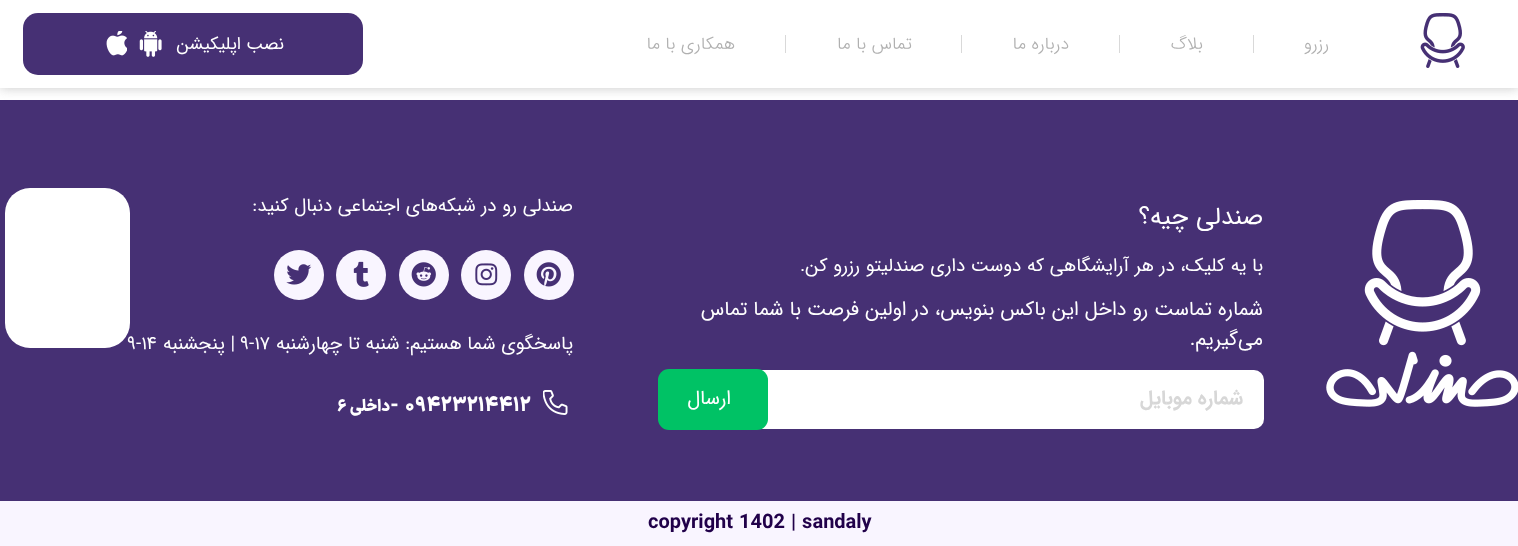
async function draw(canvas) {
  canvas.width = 1518;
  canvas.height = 546;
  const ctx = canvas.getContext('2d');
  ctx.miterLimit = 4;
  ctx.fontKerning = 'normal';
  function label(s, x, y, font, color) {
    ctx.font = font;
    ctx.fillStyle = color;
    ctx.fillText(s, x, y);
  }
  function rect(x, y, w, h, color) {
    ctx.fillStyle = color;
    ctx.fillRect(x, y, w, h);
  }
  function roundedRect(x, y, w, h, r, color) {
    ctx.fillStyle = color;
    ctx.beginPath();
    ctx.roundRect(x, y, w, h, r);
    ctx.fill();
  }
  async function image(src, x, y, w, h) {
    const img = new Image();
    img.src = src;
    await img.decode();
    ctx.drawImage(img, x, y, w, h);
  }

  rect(0, 0, 1518, 546, '#fff');
  rect(0, 100, 1518, 401, '#463074');
  ctx.fillStyle = '#908f8f80';
  ctx.filter = 'blur(6px)';
  ctx.beginPath();
  ctx.rect(0, 0, 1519, 88);
  ctx.fill();
  ctx.filter = 'none';
  rect(0, 0, 1518, 88, '#fff');
  await image('assets/img1.png', 1420, 13, 45, 55);
  ctx.direction = 'rtl';
  label('رزرو', 1329, 49, '300 17.5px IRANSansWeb', '#b0b0b0');
  rect(1253, 35, 1, 18, '#d9d9d9');
  label('بلاگ', 1203, 49, '300 17.5px IRANSansWeb', '#b0b0b0');
  rect(1119, 35, 1, 18, '#d9d9d9');
  label('درباره ما', 1069, 49, '300 17.5px IRANSansWeb', '#b0b0b0');
  rect(961, 35, 1, 18, '#d9d9d9');
  label('تماس با ما', 912, 49, '300 17.5px IRANSansWeb', '#b0b0b0');
  rect(785, 35, 1, 18, '#d9d9d9');
  label('همکاری با ما', 735, 49, '300 17.5px IRANSansWeb', '#b0b0b0');
  roundedRect(23, 13, 340, 62, 15, '#463074');
  label('نصب اپلیکیشن', 284, 49, '17.5px IRANSansWeb', '#fff');
  await image('assets/img2.png', 106, 31, 56, 26);
  await image('assets/img3.png', 1326, 200, 192, 207);
  label('صندلی چیه؟', 1263, 224, '25px IRANSansWeb', '#fff');
  label('با یه کلیک، در هر آرایشگاهی که دوست داری صندلیتو رزرو کن.', 1263, 271, '18.75px IRANSansWeb', '#fff');
  label('شماره تماست رو داخل این باکس بنویس، در اولین فرصت با شما تماس', 1263, 315, '20px IRANSansWeb', '#fff');
  label('می‌گیریم.', 1263, 345, '20px IRANSansWeb', '#fff');
  roundedRect(664, 370, 600, 59, 10, '#fff');
  label('شماره موبایل', 1243, 404, 'bold 20px IRANSansWeb', '#d7d7d7');
  roundedRect(658, 369, 110, 61, 11, '#00c265');
  label('ارسال', 731, 404, '20px IRANSansWeb', '#fff');
  label('صندلی رو در شبکه‌های اجتماعی دنبال کنید:', 573, 211, '18.75px IRANSansWeb', '#fff');
  roundedRect(5, 188, 125, 160, 25, '#fff');
  ctx.fillStyle = '#f9f5ff';
  ctx.beginPath();
  ctx.arc(549, 275, 25, 0, 2 * Math.PI);
  ctx.fill();
  await image('assets/img4.png', 536, 262, 25, 25);
  ctx.beginPath();
  ctx.arc(486, 275, 25, 0, 2 * Math.PI);
  ctx.fill();
  await image('assets/img5.png', 475, 263, 23, 23);
  ctx.beginPath();
  ctx.arc(424, 275, 25, 0, 2 * Math.PI);
  ctx.fill();
  await image('assets/img6.png', 411, 262, 25, 25);
  ctx.beginPath();
  ctx.arc(361, 275, 25, 0, 2 * Math.PI);
  ctx.fill();
  await image('assets/img7.png', 353, 261, 16, 26);
  ctx.beginPath();
  ctx.arc(299, 275, 25, 0, 2 * Math.PI);
  ctx.fill();
  await image('assets/img8.png', 286, 264, 26, 21);
  label('پاسخگوی شما هستیم: شنبه تا چهارشنبه', 573, 349, '18.75px IRANSansWeb', '#fff');
  ctx.direction = 'ltr';
  label('۹-۱۷', 240, 349, '18.75px IRANSansWeb', '#fff');
  ctx.direction = 'rtl';
  label('| پنجشنبه', 235, 349, '18.75px IRANSansWeb', '#fff');
  ctx.direction = 'ltr';
  label('۹-۱۴', 127, 349, '18.75px IRANSansWeb', '#fff');
  await image('assets/img9.png', 543, 390, 25, 25);
  label('09423214412', 405, 411, '900 20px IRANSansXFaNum', '#fff');
  label('-', 390, 411, '900 20px IRANSansXFaNum', '#fff');
  ctx.direction = 'rtl';
  label('داخلی', 390, 411, '900 16px IRANSansXFaNum', '#fff');
  ctx.direction = 'ltr';
  label('6', 337, 411, '900 16px IRANSansXFaNum', '#fff');
  rect(0, 501, 1518, 45, '#f9f5ff');
  label('copyright 1402 | sandaly', 648, 528, 'bold 20px IRANSansWeb', '#21014a');
}

draw(document.querySelector('canvas'));
